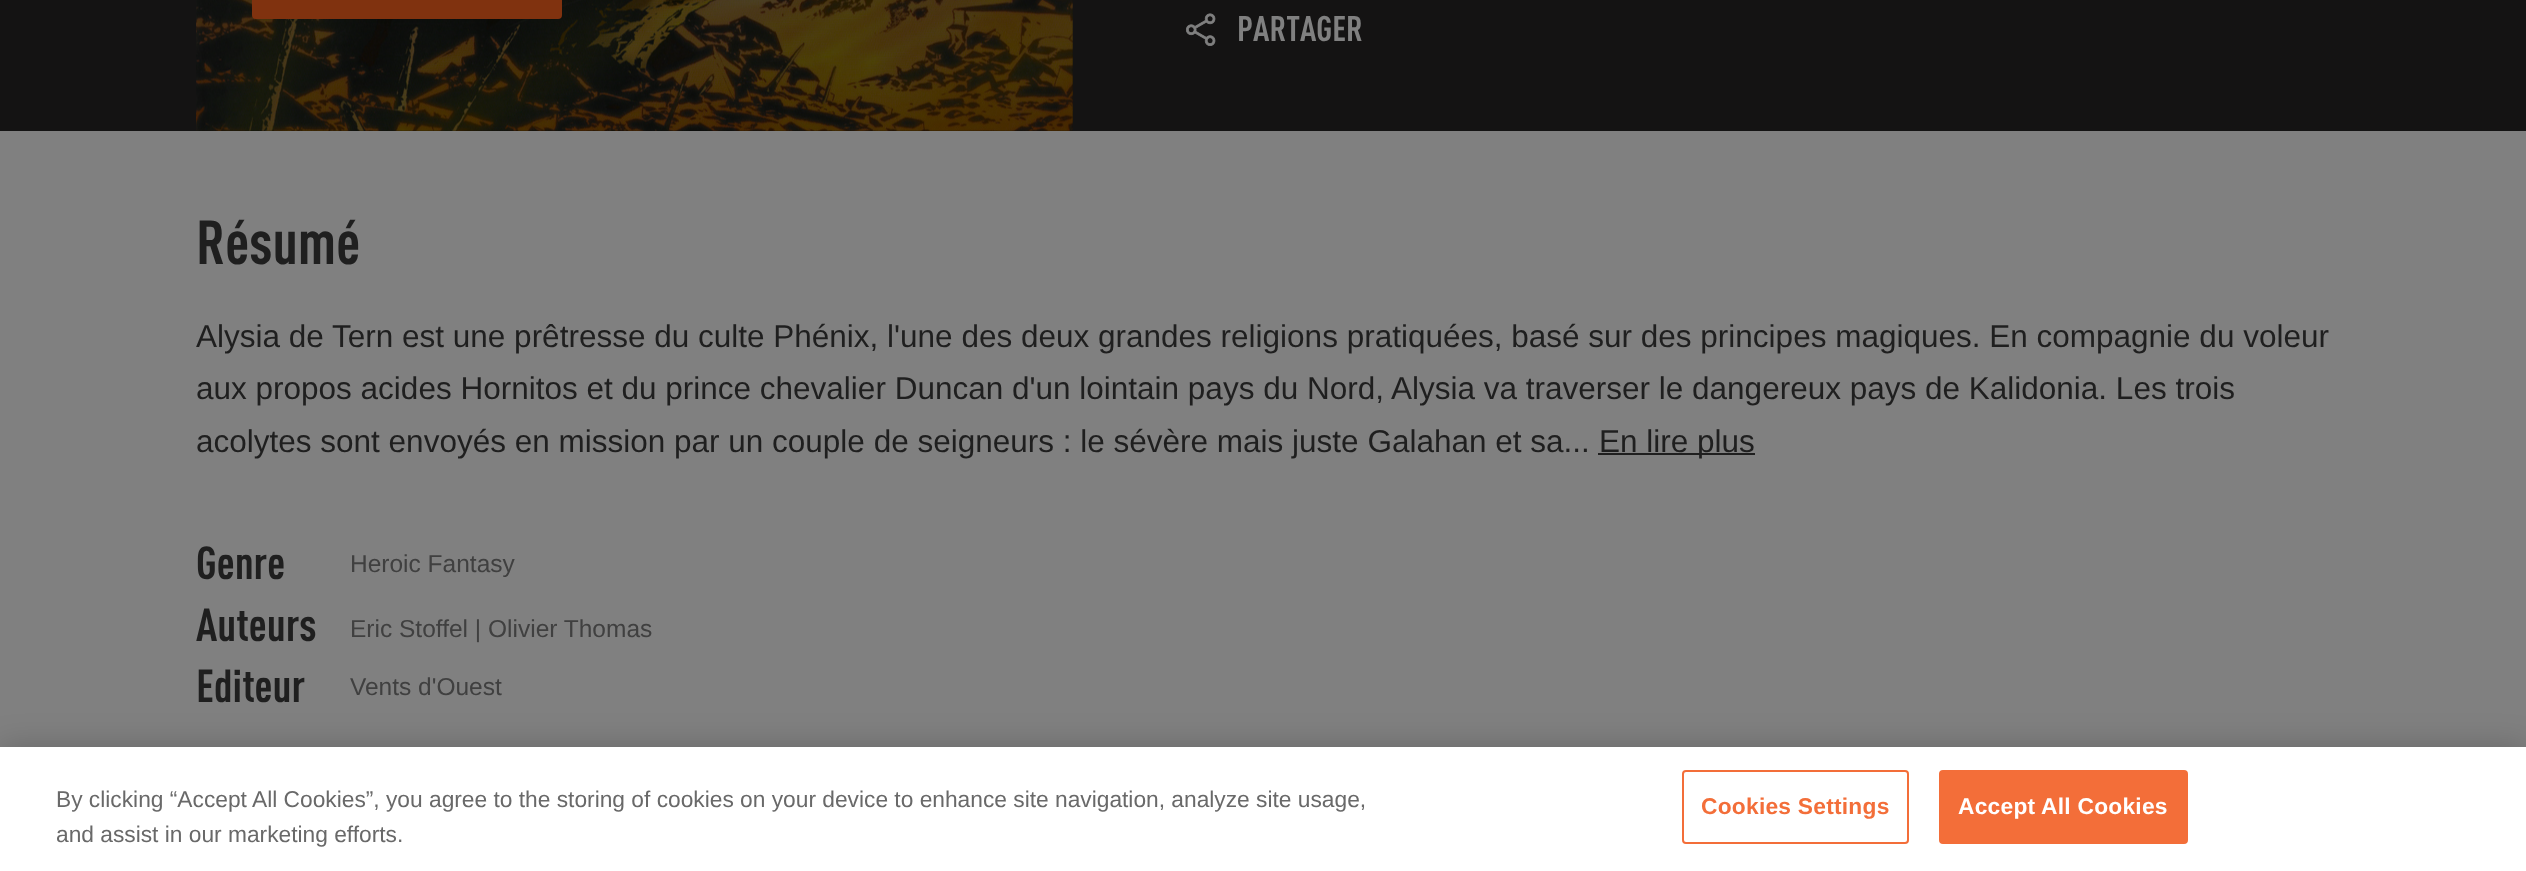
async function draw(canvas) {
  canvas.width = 2526;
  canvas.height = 871;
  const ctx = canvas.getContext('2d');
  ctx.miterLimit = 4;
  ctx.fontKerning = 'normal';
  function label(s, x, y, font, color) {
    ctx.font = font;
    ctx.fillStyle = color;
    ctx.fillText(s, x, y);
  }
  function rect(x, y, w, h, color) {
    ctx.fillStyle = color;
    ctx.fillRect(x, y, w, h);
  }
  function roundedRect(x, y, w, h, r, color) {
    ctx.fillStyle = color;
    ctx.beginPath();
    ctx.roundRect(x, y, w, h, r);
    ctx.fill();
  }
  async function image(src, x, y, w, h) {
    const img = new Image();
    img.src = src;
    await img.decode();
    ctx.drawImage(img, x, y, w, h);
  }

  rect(0, 0, 2526, 871, '#808080');
  rect(0, 0, 2526, 131, '#141313');
  rect(196, 0, 877, 131, '#0c0c0c');
  await image('assets/img1.png', 196, 0, 877, 131);
  roundedRect(252, -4, 310, 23, 4, '#80320f');
  await image('assets/img2.png', 1185, 13, 31, 33);
  label('PARTAGER', 1237, 41, 'bold 35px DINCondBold', '#808080');
  label('Résumé', 196, 264, 'bold 61px DINCondBold', '#1f1f1f');
  label('Alysia de Tern est une prêtresse du culte Phénix, l\'une des deux grandes religions pratiquées, basé sur des principes magiques. En compagnie du voleur', 196, 347, '31.5px Liberation Sans', '#1f1f1f');
  label('aux propos acides Hornitos et du prince chevalier Duncan d\'un lointain pays du Nord, Alysia va traverser le dangereux pays de Kalidonia. Les trois', 196, 399, '31.5px Liberation Sans', '#1f1f1f');
  label('acolytes sont envoyés en mission par un couple de seigneurs : le sévère mais juste Galahan et sa...', 196, 452, '31.5px Liberation Sans', '#1f1f1f');
  rect(1598, 453, 157, 2, '#1f1f1f');
  label('En lire plus', 1599, 452, '31.5px Liberation Sans', '#1f1f1f');
  label('Genre', 196, 579, 'bold 45.5px DINCondBold', '#1f1f1f');
  label('Heroic Fantasy', 350, 572, '24.5px Liberation Sans', '#404040');
  label('Auteurs', 196, 641, 'bold 45.5px DINCondBold', '#1f1f1f');
  label('Eric Stoffel | Olivier Thomas', 350, 637, '24.5px Liberation Sans', '#404040');
  label('Editeur', 196, 702, 'bold 45.5px DINCondBold', '#1f1f1f');
  label('Vents d\'Ouest', 350, 695, '24.5px Liberation Sans', '#404040');
  ctx.fillStyle = '#00000033';
  ctx.filter = 'blur(16px)';
  ctx.beginPath();
  ctx.rect(0, 747, 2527, 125);
  ctx.fill();
  ctx.filter = 'none';
  rect(0, 747, 2526, 124, '#fff');
  label('By clicking “Accept All Cookies”, you agree to the storing of cookies on your device to enhance site navigation, analyze site usage,', 56, 807, '22.75px Liberation Sans', '#696969');
  label('and assist in our marketing efforts.', 56, 842, '22.75px Liberation Sans', '#696969');
  ctx.beginPath();
  ctx.roundRect(1683, 771, 225, 72, 3);
  ctx.strokeStyle = '#f36e39';
  ctx.lineWidth = 2;
  ctx.stroke();
  ctx.letterSpacing = '0.25px';
  label('Cookies Settings', 1701, 814, 'bold 22.75px Liberation Sans', '#f36e39');
  ctx.beginPath();
  ctx.roundRect(1940, 771, 247, 72, 3);
  ctx.fill();
  ctx.stroke();
  label('Accept All Cookies', 1958, 814, 'bold 22.75px Liberation Sans', '#fff');
}

draw(document.querySelector('canvas'));
